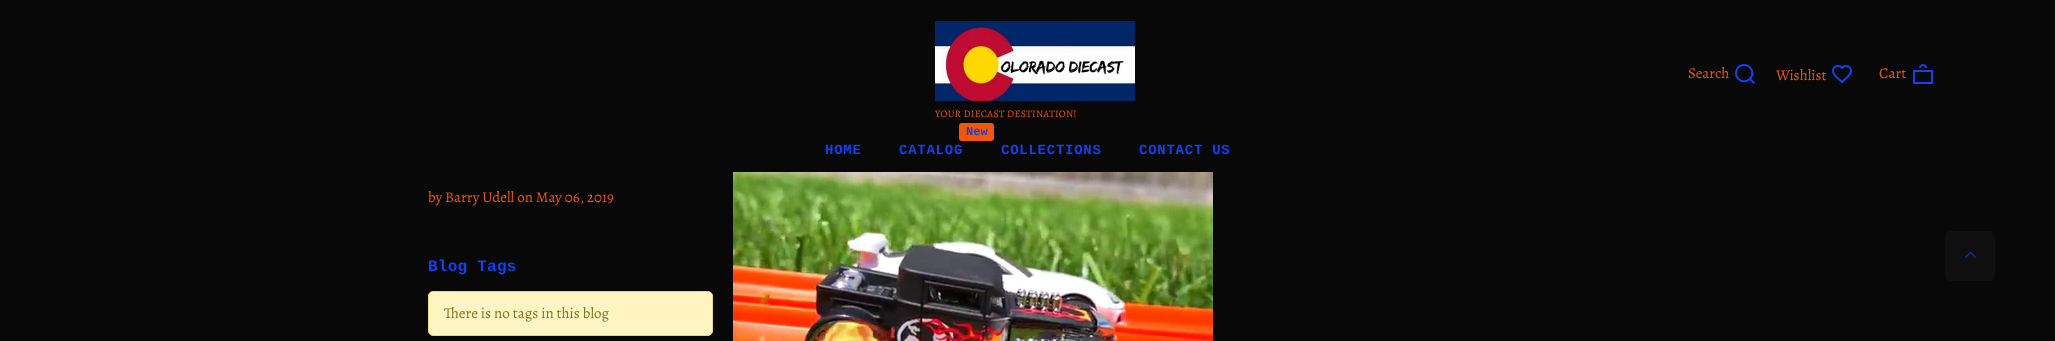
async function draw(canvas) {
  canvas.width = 2055;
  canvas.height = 341;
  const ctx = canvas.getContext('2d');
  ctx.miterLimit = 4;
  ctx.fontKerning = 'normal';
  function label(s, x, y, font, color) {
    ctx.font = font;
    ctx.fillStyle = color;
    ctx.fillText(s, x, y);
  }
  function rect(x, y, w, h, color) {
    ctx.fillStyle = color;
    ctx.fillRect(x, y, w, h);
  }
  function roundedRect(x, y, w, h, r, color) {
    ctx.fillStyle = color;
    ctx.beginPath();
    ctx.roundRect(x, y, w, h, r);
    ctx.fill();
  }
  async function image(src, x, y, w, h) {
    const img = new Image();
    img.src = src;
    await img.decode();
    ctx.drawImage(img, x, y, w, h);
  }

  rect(0, 0, 2055, 341, '#080808');
  label('Search', 1688, 78, '15px Alegreya', '#f45700');
  await image('assets/img1.png', 1735, 64, 20, 20);
  label('Wishlist', 1776, 80, '15px Alegreya', '#f45700');
  await image('assets/img2.png', 1832, 65, 20, 19);
  label('Cart', 1879, 78, '15px Alegreya', '#f45700');
  await image('assets/img3.png', 1913, 64, 20, 20);
  await image('assets/img4.png', 935, 21, 200, 80);
  ctx.letterSpacing = '0.3px';
  label('YOUR DIECAST DESTINATION!', 935, 117, '10px Alegreya', '#f45700');
  ctx.letterSpacing = '0.75px';
  label('HOME', 825, 154, 'bold 14px Liberation Mono', '#0c43f4');
  roundedRect(959, 123, 35, 18, 3, '#f45700');
  ctx.letterSpacing = '0px';
  label('New', 966, 135, 'bold 12px Liberation Mono', '#0c43f4');
  ctx.letterSpacing = '0.75px';
  label('CATALOG', 899, 154, 'bold 14px Liberation Mono', '#0c43f4');
  label('COLLECTIONS', 1001, 154, 'bold 14px Liberation Mono', '#0c43f4');
  label('CONTACT US', 1139, 154, 'bold 14px Liberation Mono', '#0c43f4');
  ctx.letterSpacing = '0px';
  label('by Barry Udell on May 06, 2019', 428, 202, '15px Alegreya', '#f45700');
  ctx.letterSpacing = '0.25px';
  label('Blog Tags', 428, 271, 'bold 16px Liberation Mono', '#0c43f4');
  ctx.fillStyle = '#fff5c3';
  ctx.beginPath();
  ctx.roundRect(428.5, 291.5, 284, 44, 4.5);
  ctx.fill();
  ctx.strokeStyle = '#edd870';
  ctx.stroke();
  ctx.letterSpacing = '0px';
  label('There is no tags in this blog', 444, 318, '15px Alegreya', '#85741f');
  await image('assets/img5.png', 733, 172, 480, 169);
  roundedRect(1945, 231, 50, 50, 5, '#0f0f0f');
  await image('assets/img6.png', 1965, 251, 11, 7);
}

draw(document.querySelector('canvas'));
